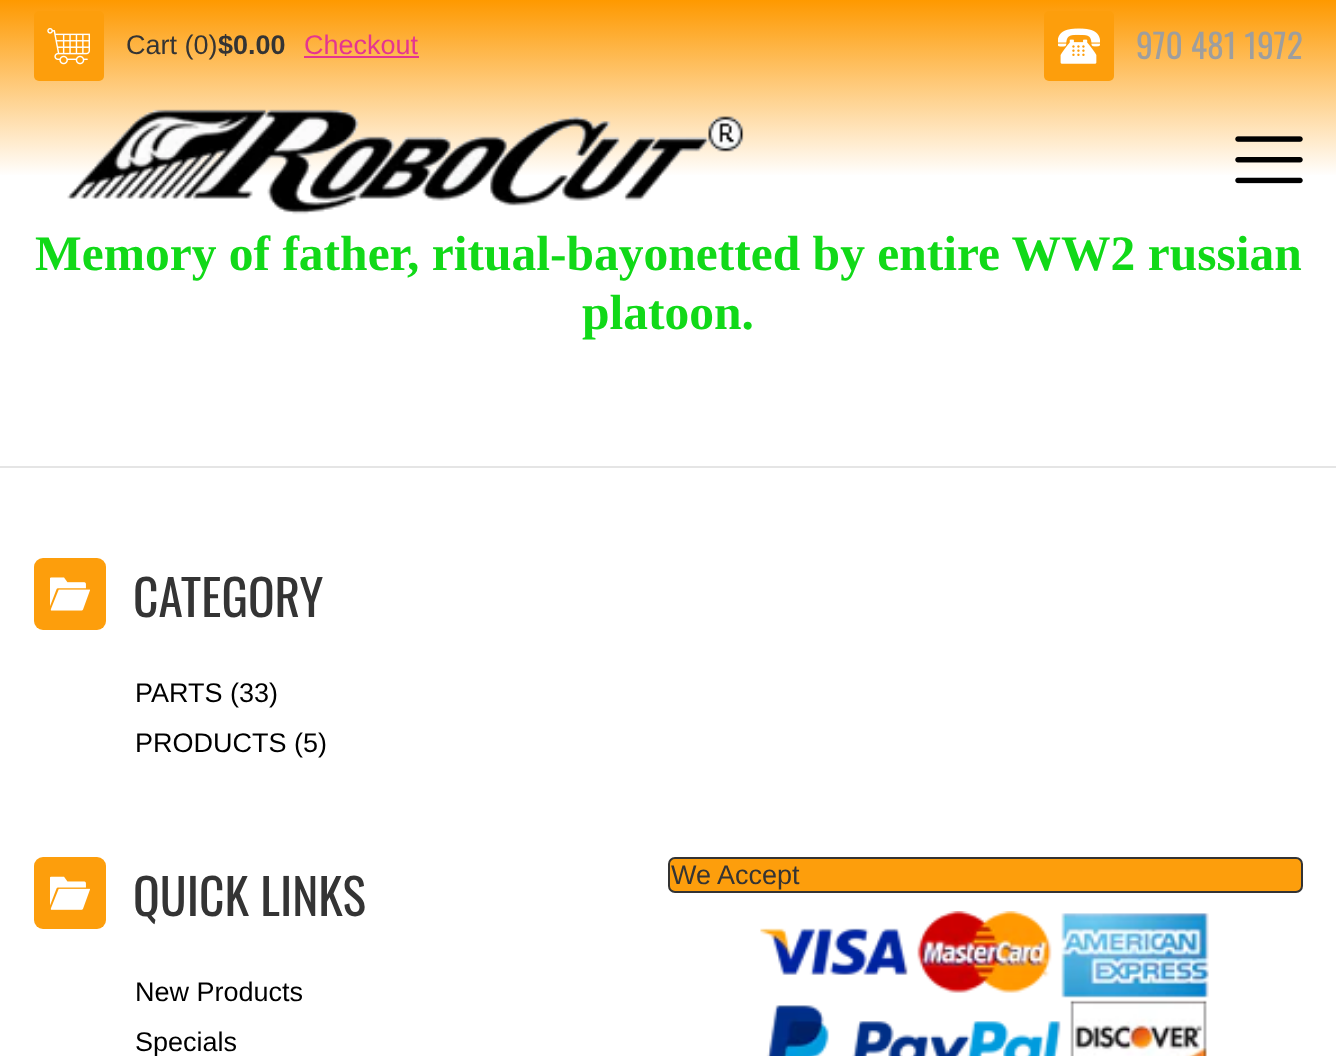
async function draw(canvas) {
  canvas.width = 1336;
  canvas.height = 1056;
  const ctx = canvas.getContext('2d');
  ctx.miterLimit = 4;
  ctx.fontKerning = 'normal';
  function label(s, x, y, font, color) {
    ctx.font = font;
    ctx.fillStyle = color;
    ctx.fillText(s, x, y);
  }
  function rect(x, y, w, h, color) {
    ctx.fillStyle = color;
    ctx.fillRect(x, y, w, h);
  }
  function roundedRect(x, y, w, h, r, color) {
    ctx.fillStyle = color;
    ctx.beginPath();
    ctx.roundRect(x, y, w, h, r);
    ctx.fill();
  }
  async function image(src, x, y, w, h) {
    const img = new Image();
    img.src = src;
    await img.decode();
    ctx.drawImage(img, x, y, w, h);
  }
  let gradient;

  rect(0, 0, 1336, 1056, '#fff');
  gradient = ctx.createLinearGradient(668, 0, 668, 353);
  gradient.addColorStop(0, '#fe9900');
  gradient.addColorStop(0.5, '#fff');
  gradient.addColorStop(1, '#fff');
  ctx.fillStyle = gradient;
  ctx.fillRect(0, 0, 1336, 175);
  roundedRect(34, 11, 70, 70, 5, '#fd9e0c');
  await image('assets/img1.png', 47, 28, 43, 37);
  label('Cart (0)', 126, 54, '27px Liberation Sans', '#343434');
  label('$0.00', 218, 54, 'bold 27px Liberation Sans', '#343434');
  label('Checkout', 304, 54, '27px Liberation Sans', '#e53590');
  rect(304, 56, 115, 2, '#e53590');
  roundedRect(1044, 11, 70, 70, 5, '#fd9e0c');
  await image('assets/img2.png', 1058, 28, 42, 36);
  label('970 481 1972', 1136, 59, '33.75px Oswald', '#9e9e9e');
  await image('assets/img3.png', 67, 109, 677, 106);
  await image('assets/img4.png', 1235, 136, 68, 48);
  label('Memory of father, ritual-bayonetted by entire WW2 russian', 35, 270, 'bold 49.5px Liberation Serif', '#11d918');
  label('platoon.', 582, 329, 'bold 49.5px Liberation Serif', '#11d918');
  rect(0, 466, 1336, 2, '#e5e5e5');
  roundedRect(34, 558, 72, 72, 9, '#fd9e0c');
  await image('assets/img5.png', 50, 577, 40, 34);
  label('CATEGORY', 133, 617, '49.5px Oswald', '#343434');
  label('PARTS (33)', 135, 702, '27px Liberation Sans', '#000');
  label('PRODUCTS (5)', 135, 752, '27px Liberation Sans', '#000');
  roundedRect(34, 857, 72, 72, 9, '#fd9e0c');
  await image('assets/img6.png', 50, 876, 40, 34);
  label('QUICK LINKS', 133, 916, '49.5px Oswald', '#343434');
  label('New Products', 135, 1001, '27px Liberation Sans', '#000');
  label('Specials', 135, 1051, '27px Liberation Sans', '#000');
  ctx.fillStyle = '#fd9e0c';
  ctx.beginPath();
  ctx.roundRect(669, 858, 633, 34, 6);
  ctx.fill();
  ctx.strokeStyle = '#333';
  ctx.lineWidth = 2;
  ctx.stroke();
  label('We Accept', 671, 884, '27px Liberation Sans', '#343434');
  await image('assets/img7.png', 760, 911, 449, 145);
}

draw(document.querySelector('canvas'));
